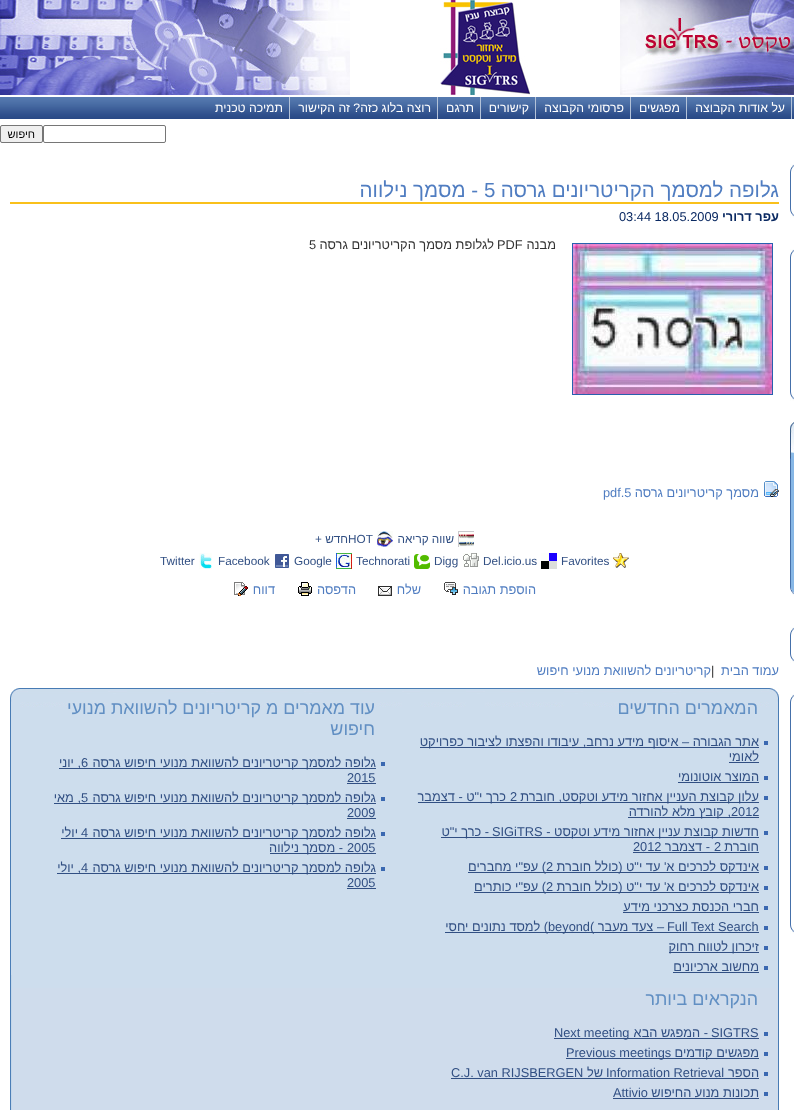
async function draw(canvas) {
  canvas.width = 794;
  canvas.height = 1110;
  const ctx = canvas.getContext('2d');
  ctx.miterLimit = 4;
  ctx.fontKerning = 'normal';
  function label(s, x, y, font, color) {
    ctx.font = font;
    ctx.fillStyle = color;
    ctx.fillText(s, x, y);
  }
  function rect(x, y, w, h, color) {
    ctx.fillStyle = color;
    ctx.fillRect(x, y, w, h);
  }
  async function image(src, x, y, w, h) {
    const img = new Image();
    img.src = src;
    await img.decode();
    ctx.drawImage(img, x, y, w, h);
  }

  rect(0, 0, 794, 1110, '#fff');
  await image('assets/img1.png', 620, 0, 174, 95);
  await image('assets/img2.png', 440, 0, 90, 95);
  await image('assets/img3.png', 0, 0, 350, 95);
  await image('assets/img4.png', 0, 97, 794, 22);
  rect(791, 97, 1, 22, '#b3c2d8');
  ctx.direction = 'rtl';
  label('על אודות הקבוצה', 785, 112, '12.25px Liberation Sans', '#fff');
  rect(686, 97, 1, 22, '#b3c2d8');
  label('מפגשים', 680, 112, '12.25px Liberation Sans', '#fff');
  rect(630, 97, 1, 22, '#b3c2d8');
  label('פרסומי הקבוצה', 624, 112, '12.25px Liberation Sans', '#fff');
  rect(535, 97, 1, 22, '#b3c2d8');
  label('קישורים', 529, 112, '12.25px Liberation Sans', '#fff');
  rect(480, 97, 1, 22, '#b3c2d8');
  label('תרגם', 474, 112, '12.25px Liberation Sans', '#fff');
  rect(437, 97, 1, 22, '#b3c2d8');
  label('רוצה בלוג כזה? זה הקישור', 431, 112, '12.25px Liberation Sans', '#fff');
  rect(289, 97, 1, 22, '#b3c2d8');
  label('תמיכה טכנית', 283, 112, '12.25px Liberation Sans', '#fff');
  ctx.beginPath();
  ctx.roundRect(43.5, 125.5, 122, 17, 1.5);
  ctx.strokeStyle = '#767676';
  ctx.stroke();
  ctx.fillStyle = '#efefef';
  ctx.beginPath();
  ctx.roundRect(0.5, 125.5, 42, 17, 1.5);
  ctx.fill();
  ctx.stroke();
  label('חיפוש', 35, 138, '11px Liberation Sans', '#000');
  await image('assets/img5.png', 790, 164, 4, 44);
  await image('assets/img6.png', 790, 208, 4, 10);
  await image('assets/img7.png', 790, 249, 4, 142);
  await image('assets/img8.png', 790, 391, 4, 10);
  await image('assets/img9.png', 790, 422, 4, 37);
  await image('assets/img10.png', 790, 459, 4, 137);
  await image('assets/img11.png', 790, 627, 4, 26);
  await image('assets/img6.png', 790, 653, 4, 10);
  await image('assets/img12.png', 790, 694, 4, 230);
  await image('assets/img6.png', 790, 924, 4, 10);
  rect(10, 202, 769, 2, '#f9c01b');
  label('גלופה למסמך הקריטריונים גרסה', 779, 197, '20.5px Liberation Sans', '#507dc1');
  ctx.direction = 'ltr';
  label('5', 484, 197, '20.5px Liberation Sans', '#507dc1');
  ctx.direction = 'rtl';
  label('- מסמך נילווה', 478, 197, '20.5px Liberation Sans', '#507dc1');
  label('עפר דרורי', 779, 221, 'bold 12.8px Liberation Sans', '#0a2962');
  ctx.direction = 'ltr';
  label('03:44 18.05.2009', 619, 221, '12.8px Liberation Sans', '#0a2962');
  ctx.strokeStyle = '#2861ae';
  ctx.strokeRect(572.5, 243.5, 200, 151);
  await image('assets/img13.png', 573, 244, 199, 150);
  ctx.direction = 'rtl';
  label('מבנה', 556, 249, '12.8px Liberation Sans', '#333');
  ctx.direction = 'ltr';
  label('PDF', 497, 249, '12.8px Liberation Sans', '#333');
  ctx.direction = 'rtl';
  label('לגלופת מסמך הקריטריונים גרסה', 494, 249, '12.8px Liberation Sans', '#333');
  ctx.direction = 'ltr';
  label('5', 309, 249, '12.8px Liberation Sans', '#333');
  await image('assets/img14.png', 764, 481, 15, 16);
  ctx.direction = 'rtl';
  label('מסמך קריטריונים גרסה', 759, 497, '12.8px Liberation Sans', '#507dc1');
  ctx.direction = 'ltr';
  label('pdf.5', 603, 497, '12.8px Liberation Sans', '#507dc1');
  await image('assets/img15.png', 458, 531, 16, 16);
  ctx.direction = 'rtl';
  label('שווה קריאה', 454, 543, '11.75px Liberation Sans', '#314f83');
  await image('assets/img16.png', 377, 531, 16, 16);
  ctx.direction = 'ltr';
  label('HOT', 348, 543, '11.75px Liberation Sans', '#314f83');
  ctx.direction = 'rtl';
  label('חדש +', 348, 543, '11.75px Liberation Sans', '#314f83');
  await image('assets/img17.png', 613, 553, 16, 15);
  ctx.direction = 'ltr';
  label('Favorites', 561, 565, '11.75px Liberation Sans', '#314f83');
  await image('assets/img18.png', 541, 553, 16, 16);
  label('Del.icio.us', 483, 565, '11.75px Liberation Sans', '#314f83');
  await image('assets/img19.png', 463, 553, 16, 14);
  label('Digg', 434, 565, '11.75px Liberation Sans', '#314f83');
  await image('assets/img20.png', 414, 554, 16, 15);
  label('Technorati', 356, 565, '11.75px Liberation Sans', '#314f83');
  await image('assets/img21.png', 336, 553, 16, 16);
  label('Google', 294, 565, '11.75px Liberation Sans', '#314f83');
  await image('assets/img22.png', 275, 554, 14, 14);
  label('Facebook', 218, 565, '11.75px Liberation Sans', '#314f83');
  await image('assets/img23.png', 199, 553, 13, 16);
  label('Twitter', 160, 565, '11.75px Liberation Sans', '#314f83');
  ctx.direction = 'rtl';
  label('הוספת תגובה', 536, 594, '12.8px Liberation Sans', '#507dc1');
  await image('assets/img24.png', 444, 582, 14, 13);
  label('שלח', 421, 594, '12.8px Liberation Sans', '#507dc1');
  await image('assets/img25.png', 378, 586, 14, 10);
  label('הדפסה', 356, 594, '12.8px Liberation Sans', '#507dc1');
  await image('assets/img26.png', 298, 582, 14, 14);
  label('דווח', 275, 594, '12.8px Liberation Sans', '#507dc1');
  await image('assets/img27.png', 234, 582, 14, 14);
  label('עמוד הבית', 779, 675, '12.8px Liberation Sans', '#507dc1');
  ctx.direction = 'ltr';
  label('|', 711, 675, '12.8px Liberation Sans', '#333');
  ctx.direction = 'rtl';
  label('קריטריונים להשוואת מנועי חיפוש', 711, 675, '12.8px Liberation Sans', '#507dc1');
  rect(12, 988, 766, 122, '#cfdcec');
  await image('assets/img28.png', 10, 688, 418, 300);
  await image('assets/img29.png', 428, 688, 351, 300);
  rect(778, 698, 1, 412, '#487bb4');
  label('המאמרים החדשים', 758, 714, '17.9px Liberation Sans', '#618fc3');
  rect(764, 741, 4, 4, '#3a68b1');
  rect(420, 747, 339, 1, '#314f83');
  label('אתר הגבורה – איסוף מידע נרחב, עיבודו והפצתו לציבור כפרויקט', 759, 746, '12.8px Liberation Sans', '#314f83');
  label('לאומי', 759, 761, '12.8px Liberation Sans', '#314f83');
  rect(729, 762, 30, 1, '#314f83');
  rect(764, 776, 4, 4, '#3a68b1');
  label('המוצר אוטונומי', 759, 781, '12.8px Liberation Sans', '#314f83');
  rect(678, 782, 81, 1, '#314f83');
  rect(764, 796, 4, 4, '#3a68b1');
  rect(418, 802, 341, 1, '#314f83');
  label('עלון קבוצת העניין אחזור מידע וטקסט, חוברת', 759, 801, '12.8px Liberation Sans', '#314f83');
  ctx.direction = 'ltr';
  label('2', 510, 801, '12.8px Liberation Sans', '#314f83');
  ctx.direction = 'rtl';
  label('כרך י"ט - דצמבר', 506, 801, '12.8px Liberation Sans', '#314f83');
  ctx.direction = 'ltr';
  label('2012', 731, 816, '12.8px Liberation Sans', '#314f83');
  rect(628, 817, 131, 1, '#314f83');
  ctx.direction = 'rtl';
  label(', קובץ מלא להורדה', 731, 816, '12.8px Liberation Sans', '#314f83');
  rect(764, 831, 4, 4, '#3a68b1');
  rect(441, 837, 318, 1, '#314f83');
  label('חדשות קבוצת עניין אחזור מידע וטקסט -', 759, 836, '12.8px Liberation Sans', '#314f83');
  ctx.direction = 'ltr';
  label('SIGiTRS', 492, 836, '12.8px Liberation Sans', '#314f83');
  ctx.direction = 'rtl';
  label('- כרך י"ט', 489, 836, '12.8px Liberation Sans', '#314f83');
  label('חוברת', 759, 851, '12.8px Liberation Sans', '#314f83');
  ctx.direction = 'ltr';
  label('2', 714, 851, '12.8px Liberation Sans', '#314f83');
  ctx.direction = 'rtl';
  label('- דצמבר', 710, 851, '12.8px Liberation Sans', '#314f83');
  ctx.direction = 'ltr';
  label('2012', 633, 851, '12.8px Liberation Sans', '#314f83');
  rect(633, 852, 126, 1, '#314f83');
  rect(764, 866, 4, 4, '#3a68b1');
  rect(468, 872, 291, 1, '#314f83');
  ctx.direction = 'rtl';
  label('אינדקס לכרכים א\' עד י"ט (כולל חוברת', 759, 871, '12.8px Liberation Sans', '#314f83');
  ctx.direction = 'ltr';
  label('2', 546, 871, '12.8px Liberation Sans', '#314f83');
  ctx.direction = 'rtl';
  label(') עפ"י מחברים', 546, 871, '12.8px Liberation Sans', '#314f83');
  rect(764, 886, 4, 4, '#3a68b1');
  rect(474, 892, 285, 1, '#314f83');
  label('אינדקס לכרכים א\' עד י"ט (כולל חוברת', 759, 891, '12.8px Liberation Sans', '#314f83');
  ctx.direction = 'ltr';
  label('2', 546, 891, '12.8px Liberation Sans', '#314f83');
  ctx.direction = 'rtl';
  label(') עפ"י כותרים', 546, 891, '12.8px Liberation Sans', '#314f83');
  rect(764, 906, 4, 4, '#3a68b1');
  label('חברי הכנסת כצרכני מידע', 759, 911, '12.8px Liberation Sans', '#314f83');
  rect(623, 912, 136, 1, '#314f83');
  rect(764, 926, 4, 4, '#3a68b1');
  ctx.direction = 'ltr';
  label('Full Text Search', 667, 931, '12.8px Liberation Sans', '#314f83');
  ctx.direction = 'rtl';
  label('– צעד מעבר', 664, 931, '12.8px Liberation Sans', '#314f83');
  rect(590, 932, 169, 1, '#314f83');
  ctx.direction = 'ltr';
  label('(', 590, 931, '12.8px Liberation Sans', '#314f83');
  rect(445, 932, 145, 1, '#314f83');
  label('beyond', 548, 931, '12.8px Liberation Sans', '#314f83');
  ctx.direction = 'rtl';
  label(') למסד נתונים יחסי', 548, 931, '12.8px Liberation Sans', '#314f83');
  rect(764, 946, 4, 4, '#3a68b1');
  rect(669, 952, 90, 1, '#314f83');
  label('זיכרון לטווח רחוק', 759, 951, '12.8px Liberation Sans', '#314f83');
  rect(764, 966, 4, 4, '#3a68b1');
  label('מחשוב ארכיונים', 759, 971, '12.8px Liberation Sans', '#314f83');
  rect(673, 972, 86, 1, '#314f83');
  label('הנקראים ביותר', 758, 1005, '17.9px Liberation Sans', '#618fc3');
  rect(764, 1032, 4, 4, '#3a68b1');
  ctx.direction = 'ltr';
  label('SIGTRS', 711, 1037, '12.8px Liberation Sans', '#314f83');
  ctx.direction = 'rtl';
  label('- המפגש הבא', 708, 1037, '12.8px Liberation Sans', '#314f83');
  rect(554, 1038, 205, 1, '#314f83');
  ctx.direction = 'ltr';
  label('Next meeting', 554, 1037, '12.8px Liberation Sans', '#314f83');
  rect(764, 1052, 4, 4, '#3a68b1');
  rect(566, 1058, 193, 1, '#314f83');
  ctx.direction = 'rtl';
  label('מפגשים קודמים', 759, 1057, '12.8px Liberation Sans', '#314f83');
  ctx.direction = 'ltr';
  label('Previous meetings', 566, 1057, '12.8px Liberation Sans', '#314f83');
  rect(764, 1072, 4, 4, '#3a68b1');
  ctx.direction = 'rtl';
  label('הספר', 759, 1077, '12.8px Liberation Sans', '#314f83');
  rect(451, 1078, 308, 1, '#314f83');
  ctx.direction = 'ltr';
  label('Information Retrieval', 606, 1077, '12.8px Liberation Sans', '#314f83');
  ctx.direction = 'rtl';
  label('של', 603, 1077, '12.8px Liberation Sans', '#314f83');
  ctx.direction = 'ltr';
  label('C.J. van RIJSBERGEN', 451, 1077, '12.8px Liberation Sans', '#314f83');
  rect(764, 1092, 4, 4, '#3a68b1');
  ctx.direction = 'rtl';
  label('תכונות מנוע החיפוש', 759, 1097, '12.8px Liberation Sans', '#314f83');
  rect(613, 1098, 146, 1, '#314f83');
  ctx.direction = 'ltr';
  label('Attivio', 613, 1097, '12.8px Liberation Sans', '#314f83');
  await image('assets/img30.png', 10, 975, 2, 135);
  rect(10, 698, 1, 207, '#487bb4');
  ctx.direction = 'rtl';
  label('עוד מאמרים מ קריטריונים להשוואת מנועי', 375, 714, '17.9px Liberation Sans', '#618fc3');
  label('חיפוש', 375, 735, '17.9px Liberation Sans', '#618fc3');
  rect(381, 762, 4, 4, '#3a68b1');
  rect(59, 768, 317, 1, '#314f83');
  label('גלופה למסמך קריטריונים להשוואת מנועי חיפוש גרסה', 376, 767, '12.8px Liberation Sans', '#314f83');
  ctx.direction = 'ltr';
  label('6', 81, 767, '12.8px Liberation Sans', '#314f83');
  ctx.direction = 'rtl';
  label(', יוני', 81, 767, '12.8px Liberation Sans', '#314f83');
  ctx.direction = 'ltr';
  label('2015', 347, 782, '12.8px Liberation Sans', '#314f83');
  rect(347, 783, 29, 1, '#314f83');
  rect(381, 797, 4, 4, '#3a68b1');
  rect(54, 803, 322, 1, '#314f83');
  ctx.direction = 'rtl';
  label('גלופה למסמך קריטריונים להשוואת מנועי חיפוש גרסה', 376, 802, '12.8px Liberation Sans', '#314f83');
  ctx.direction = 'ltr';
  label('5', 81, 802, '12.8px Liberation Sans', '#314f83');
  ctx.direction = 'rtl';
  label(', מאי', 81, 802, '12.8px Liberation Sans', '#314f83');
  ctx.direction = 'ltr';
  label('2009', 347, 817, '12.8px Liberation Sans', '#314f83');
  rect(347, 818, 29, 1, '#314f83');
  rect(381, 832, 4, 4, '#3a68b1');
  rect(61, 838, 315, 1, '#314f83');
  ctx.direction = 'rtl';
  label('גלופה למסמך קריטריונים להשוואת מנועי חיפוש גרסה', 376, 837, '12.8px Liberation Sans', '#314f83');
  ctx.direction = 'ltr';
  label('4', 81, 837, '12.8px Liberation Sans', '#314f83');
  ctx.direction = 'rtl';
  label('יולי', 78, 837, '12.8px Liberation Sans', '#314f83');
  ctx.direction = 'ltr';
  label('2005', 347, 852, '12.8px Liberation Sans', '#314f83');
  rect(270, 853, 106, 1, '#314f83');
  ctx.direction = 'rtl';
  label('- מסמך נילווה', 343, 852, '12.8px Liberation Sans', '#314f83');
  rect(381, 867, 4, 4, '#3a68b1');
  rect(57, 873, 319, 1, '#314f83');
  label('גלופה למסמך קריטריונים להשוואת מנועי חיפוש גרסה', 376, 872, '12.8px Liberation Sans', '#314f83');
  ctx.direction = 'ltr';
  label('4', 81, 872, '12.8px Liberation Sans', '#314f83');
  ctx.direction = 'rtl';
  label(', יולי', 81, 872, '12.8px Liberation Sans', '#314f83');
  ctx.direction = 'ltr';
  label('2005', 347, 887, '12.8px Liberation Sans', '#314f83');
  rect(347, 888, 29, 1, '#314f83');
}

draw(document.querySelector('canvas'));
